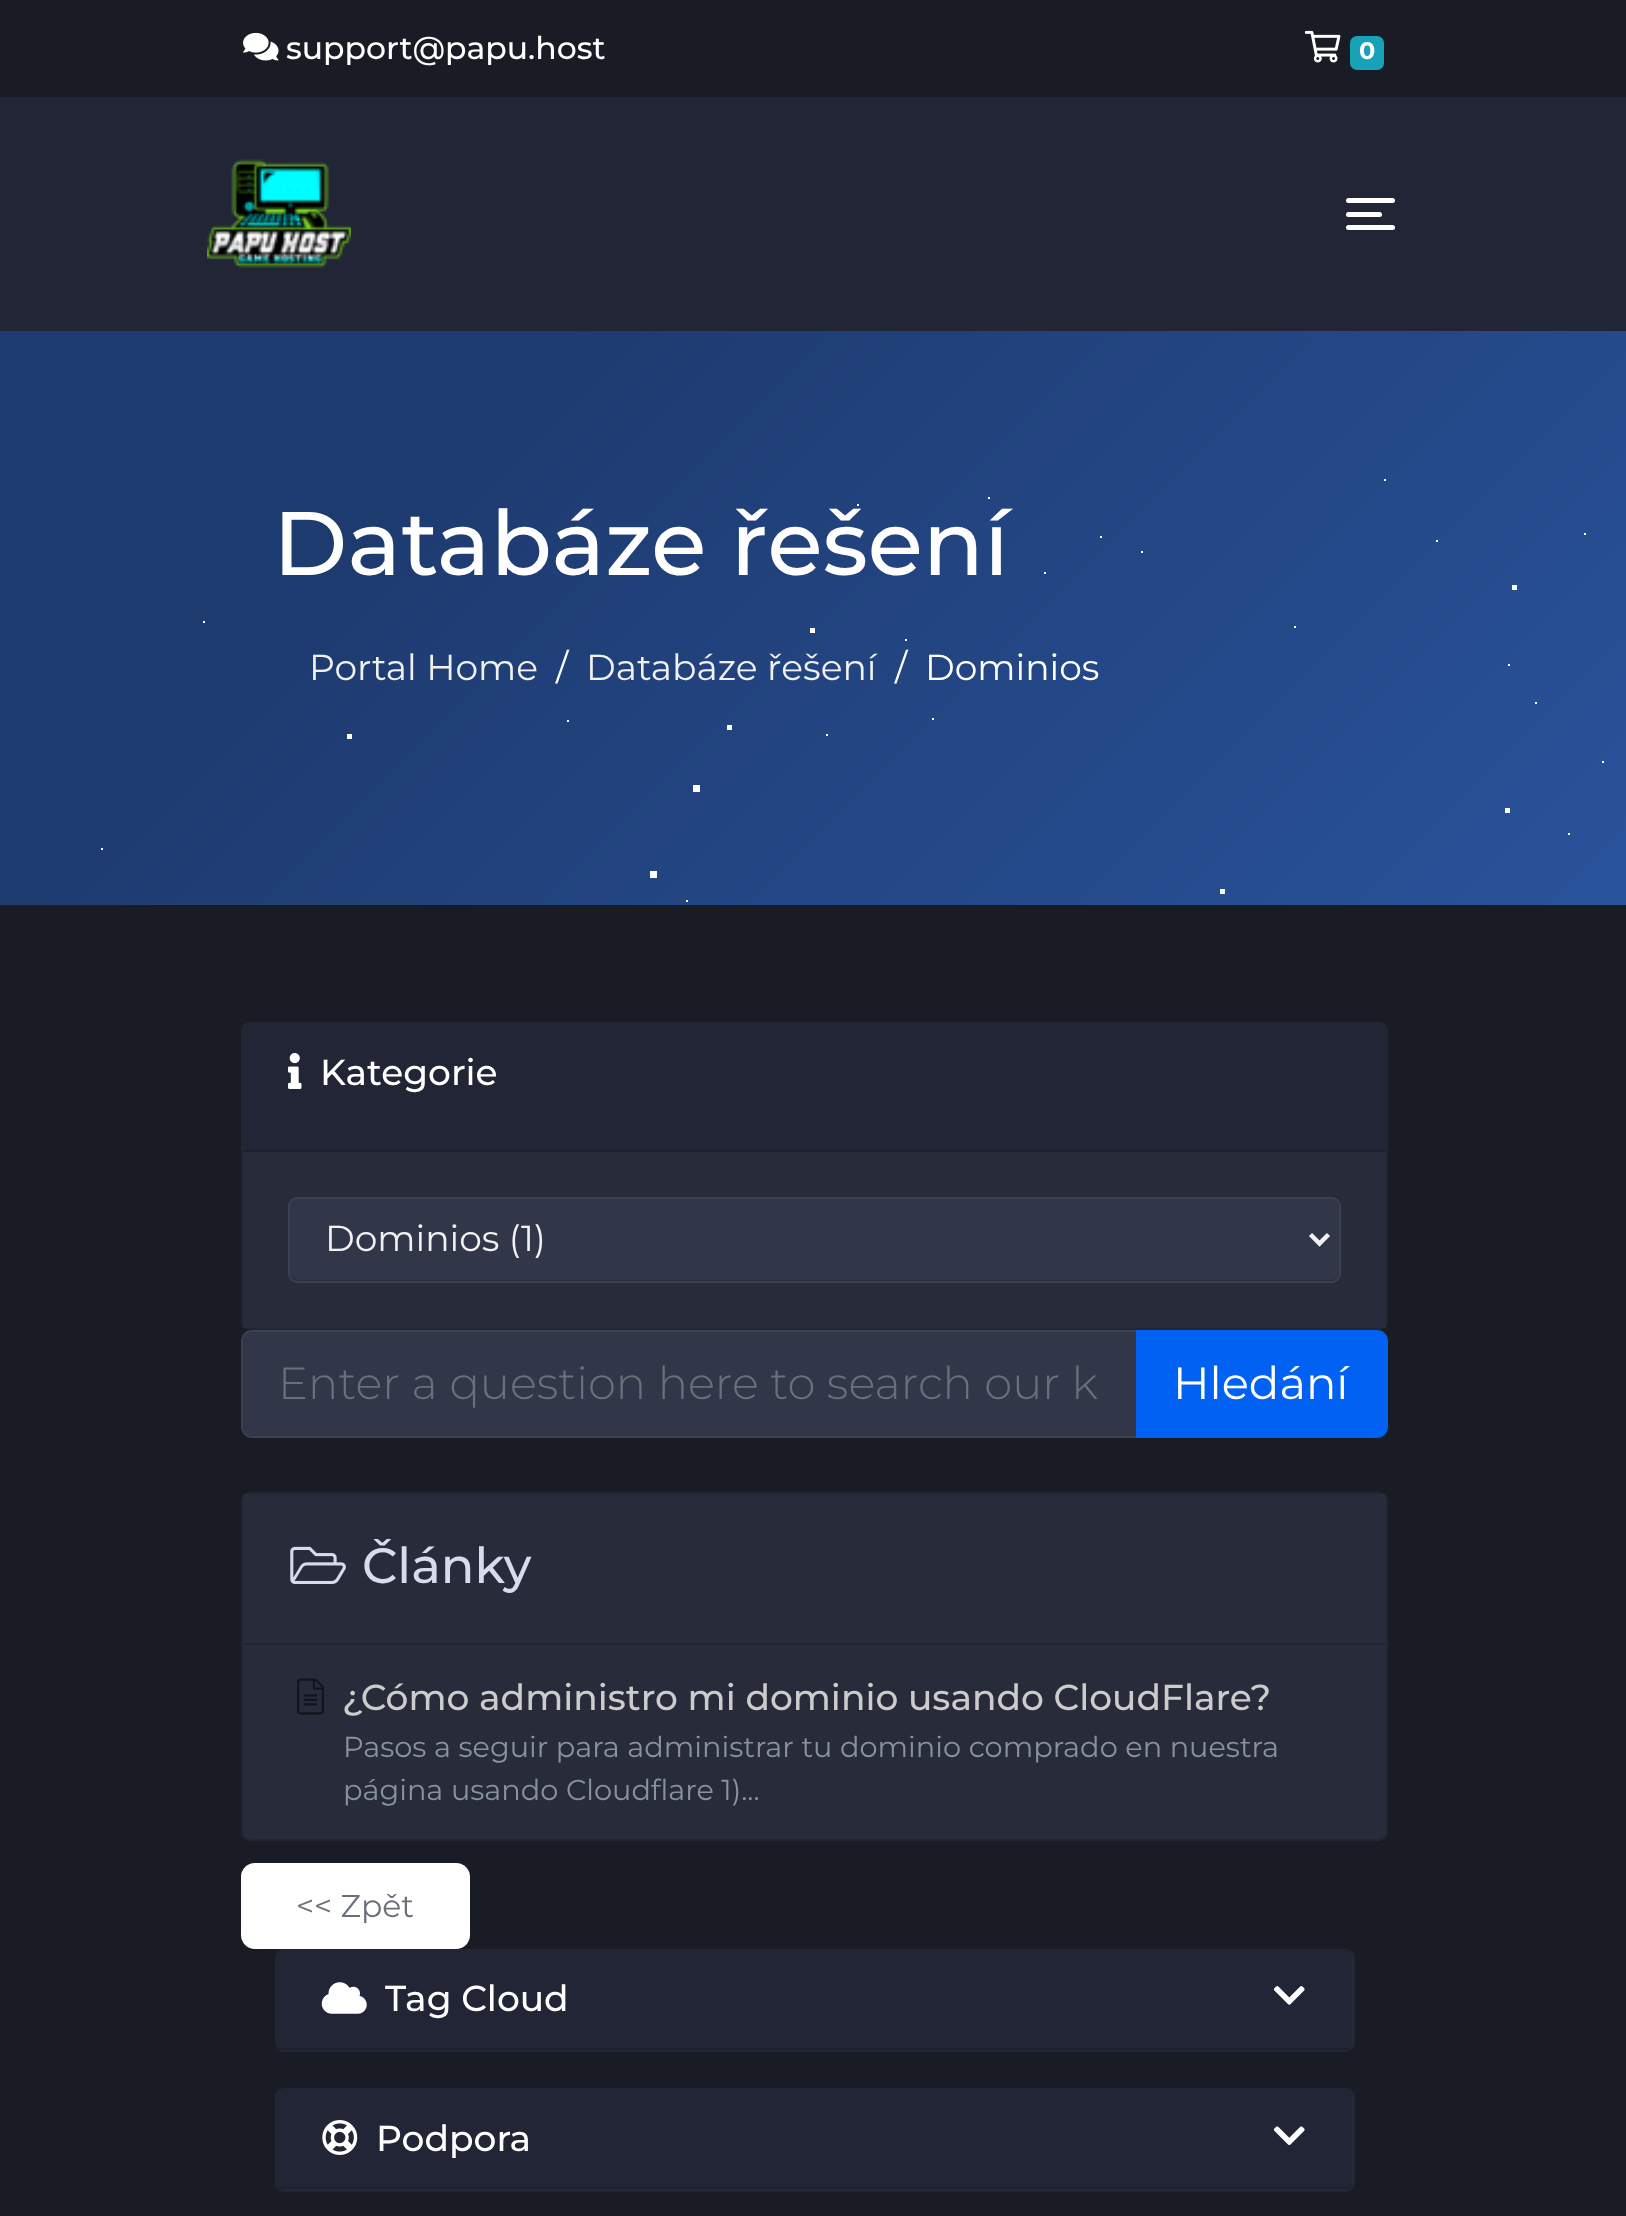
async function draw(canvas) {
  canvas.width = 1626;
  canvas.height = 2216;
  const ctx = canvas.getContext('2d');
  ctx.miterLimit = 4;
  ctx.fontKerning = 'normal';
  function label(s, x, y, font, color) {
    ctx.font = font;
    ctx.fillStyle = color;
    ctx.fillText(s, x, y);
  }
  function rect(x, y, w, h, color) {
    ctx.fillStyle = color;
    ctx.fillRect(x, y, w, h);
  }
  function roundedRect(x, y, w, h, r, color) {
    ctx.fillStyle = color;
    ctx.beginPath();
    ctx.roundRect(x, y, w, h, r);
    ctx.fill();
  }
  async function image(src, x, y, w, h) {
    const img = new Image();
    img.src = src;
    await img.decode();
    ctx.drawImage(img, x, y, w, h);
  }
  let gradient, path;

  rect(0, 0, 1626, 2216, '#191c25');
  await image('assets/img1.png', 243, 32, 36, 29);
  label('support@papu.host', 286, 59, '500 31.5px Montserrat', '#fff');
  await image('assets/img2.png', 1305, 30, 36, 33);
  roundedRect(1350, 36, 34, 34, 7, '#17a2b8');
  label('0', 1359, 59, 'bold 24px Montserrat', '#fff');
  rect(0, 97, 1626, 234, '#212535');
  await image('assets/img3.png', 207, 159, 144, 110);
  roundedRect(1346, 198, 49, 5, 2.5, '#fff');
  roundedRect(1346, 212, 36, 5, 2.5, '#fff');
  roundedRect(1346, 225, 49, 5, 2.5, '#fff');
  gradient = ctx.createLinearGradient(1364, 1168, 263, 68);
  gradient.addColorStop(0, '#29539b');
  gradient.addColorStop(0.74, '#1e3b70');
  ctx.fillStyle = gradient;
  ctx.fillRect(0, 331, 1626, 574);
  rect(1508, 664, 2, 2, '#fff');
  rect(932, 718, 2, 2, '#fff');
  rect(203, 621, 2, 2, '#fff');
  rect(1294, 626, 2, 2, '#fff');
  rect(686, 900, 2, 2, '#fff');
  rect(857, 504, 2, 2, '#fff');
  rect(905, 639, 2, 2, '#fff');
  rect(1436, 540, 2, 2, '#fff');
  rect(1535, 702, 2, 2, '#fff');
  rect(1568, 833, 2, 2, '#fff');
  rect(1044, 572, 2, 2, '#fff');
  rect(567, 720, 2, 2, '#fff');
  rect(1584, 533, 2, 2, '#fff');
  rect(101, 848, 2, 2, '#fff');
  rect(826, 734, 2, 2, '#fff');
  rect(1141, 551, 2, 2, '#fff');
  rect(1384, 479, 2, 2, '#fff');
  rect(1100, 536, 2, 2, '#fff');
  rect(988, 497, 2, 2, '#fff');
  rect(1602, 761, 2, 2, '#fff');
  label('Databáze řešení', 273, 575, '500 90px Montserrat', '#fff');
  label('Portal Home', 309, 680, '36px Montserrat', '#f1f1f1');
  label('/', 556, 680, '36px Montserrat', '#fff');
  label('Databáze řešení', 586, 680, '36px Montserrat', '#f1f1f1');
  label('/', 895, 680, '36px Montserrat', '#fff');
  label('Dominios', 925, 680, '36px Montserrat', '#fff');
  rect(810, 628, 5, 5, '#fff');
  rect(727, 725, 5, 5, '#fff');
  rect(1220, 889, 5, 5, '#fff');
  rect(1505, 808, 5, 5, '#fff');
  rect(347, 734, 5, 5, '#fff');
  rect(1512, 585, 5, 5, '#fff');
  rect(650, 871, 7, 7, '#fff');
  rect(693, 785, 7, 7, '#fff');
  roundedRect(241, 1022, 1147, 308, 9, '#272b3a');
  ctx.beginPath();
  ctx.roundRect(242, 1023, 1145, 306, 8);
  ctx.strokeStyle = '#0000001f';
  ctx.lineWidth = 2;
  ctx.stroke();
  ctx.fillStyle = '#212535';
  ctx.beginPath();
  ctx.roundRect(243, 1024, 1143, 128, [7, 7, 0, 0]);
  ctx.fill();
  rect(243, 1150, 1143, 2, '#1d202e');
  await image('assets/img4.png', 288, 1053, 14, 36);
  label('Kategorie', 320, 1085, '500 36px Montserrat', '#fff');
  rect(243, 1323, 1143, 5, '#272b3a');
  roundedRect(290, 1199, 1049, 81, 7, '#323649');
  ctx.beginPath();
  ctx.roundRect(289, 1198, 1051, 84, 8);
  ctx.strokeStyle = '#3c4050';
  ctx.stroke();
  path = new Path2D('M1310.5 1234.5L1319.5 1243.5L1328.5 1234.5');
  ctx.strokeStyle = '#f1f1f1';
  ctx.lineWidth = 4.5;
  ctx.stroke(path);
  label('Dominios (1)', 325, 1251, '36px Montserrat', '#f1f1f1');
  ctx.fillStyle = '#323649';
  ctx.beginPath();
  ctx.roundRect(243, 1332, 893, 104, [9, 0, 0, 9]);
  ctx.fill();
  ctx.beginPath();
  ctx.roundRect(242, 1331, 896, 106, [10, 0, 0, 10]);
  ctx.strokeStyle = '#3c4050';
  ctx.lineWidth = 2;
  ctx.stroke();
  label('Enter a question here to search our k', 278, 1399, '300 45px Montserrat', '#69707a');
  ctx.fillStyle = '#0061f2';
  ctx.beginPath();
  ctx.roundRect(1137, 1331, 250, 106, [0, 10, 10, 0]);
  ctx.fill();
  ctx.strokeStyle = '#0061f2';
  ctx.stroke();
  label('Hledání', 1173, 1399, '45px Montserrat', '#fff');
  roundedRect(241, 1492, 1147, 349, 9, '#272b3a');
  ctx.beginPath();
  ctx.roundRect(242, 1493, 1145, 347, 8);
  ctx.strokeStyle = '#0000001f';
  ctx.stroke();
  rect(243, 1494, 1143, 5, '#272b3a');
  await image('assets/img5.png', 290, 1546, 56, 38);
  label('Články', 362, 1583, '500 49.5px Montserrat', '#d7dbee');
  rect(243, 1643, 1143, 2, '#222633');
  await image('assets/img6.png', 297, 1678, 27, 37);
  label('¿Cómo administro mi dominio usando CloudFlare?', 342, 1710, '500 36px Montserrat', '#ccc');
  label('Pasos a seguir para administrar tu dominio comprado en nuestra', 343, 1757, '28.8px Montserrat', '#87939f');
  label('página usando Cloudflare 1)...', 343, 1800, '28.8px Montserrat', '#87939f');
  roundedRect(241, 1863, 229, 86, 14, '#fff');
  label('<< Zpět', 296, 1917, '31.5px Montserrat', '#69707a');
  roundedRect(275, 1949, 1080, 103, 9, '#272b3a');
  ctx.beginPath();
  ctx.roundRect(276, 1950, 1078, 101, 8);
  ctx.stroke();
  ctx.fillStyle = '#212535';
  ctx.beginPath();
  ctx.roundRect(277, 1951, 1075, 99, [7, 7, 0, 0]);
  ctx.fill();
  rect(277, 2048, 1075, 2, '#1d202e');
  await image('assets/img7.png', 321, 1982, 46, 32);
  label('Tag Cloud', 385, 2011, '500 36px Montserrat', '#fff');
  await image('assets/img8.png', 1273, 1986, 32, 19);
  roundedRect(275, 2088, 1080, 104, 9, '#272b3a');
  ctx.beginPath();
  ctx.roundRect(276, 2089, 1078, 102, 8);
  ctx.stroke();
  ctx.fillStyle = '#212535';
  ctx.beginPath();
  ctx.roundRect(277, 2090, 1075, 99, [7, 7, 0, 0]);
  ctx.fill();
  rect(277, 2187, 1075, 2, '#1d202e');
  await image('assets/img9.png', 322, 2120, 36, 35);
  label('Podpora', 376, 2151, '500 36px Montserrat', '#fff');
  await image('assets/img10.png', 1273, 2126, 32, 20);
}

draw(document.querySelector('canvas'));
